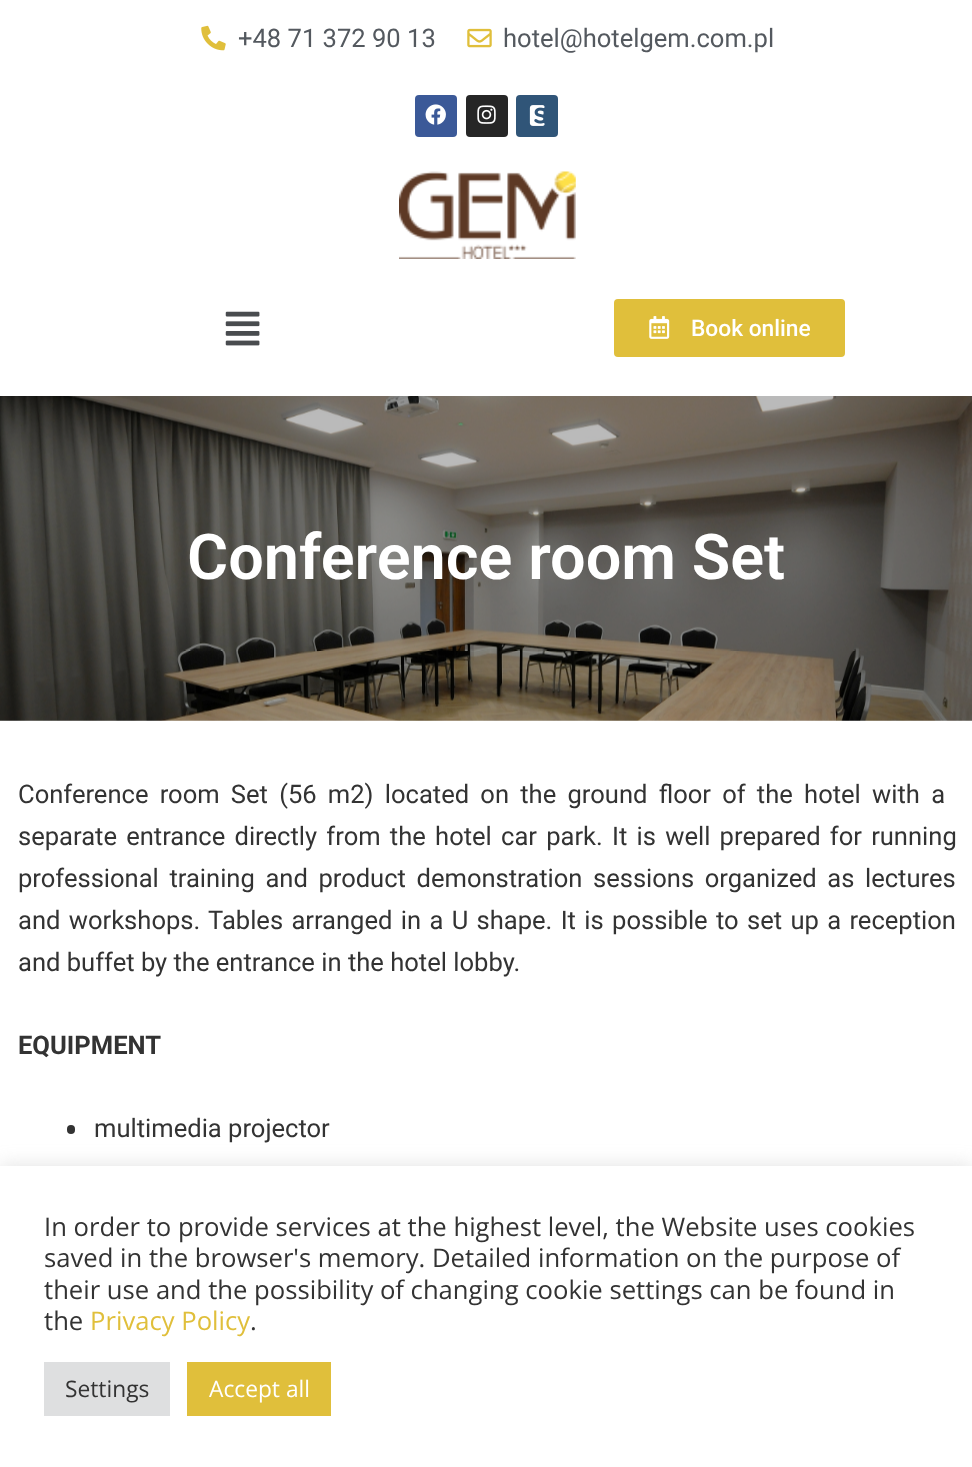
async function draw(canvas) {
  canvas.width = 972;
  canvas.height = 1467;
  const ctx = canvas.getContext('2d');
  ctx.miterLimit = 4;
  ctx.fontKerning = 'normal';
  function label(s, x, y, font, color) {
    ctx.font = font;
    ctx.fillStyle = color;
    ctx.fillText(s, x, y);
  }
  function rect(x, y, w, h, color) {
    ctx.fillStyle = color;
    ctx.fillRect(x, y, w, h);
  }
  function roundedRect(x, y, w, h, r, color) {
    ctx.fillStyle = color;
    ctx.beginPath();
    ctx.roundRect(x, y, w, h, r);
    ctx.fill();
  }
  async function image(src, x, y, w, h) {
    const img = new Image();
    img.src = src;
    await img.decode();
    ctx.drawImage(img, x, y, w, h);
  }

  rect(0, 0, 972, 1467, '#fff');
  await image('assets/img1.png', 201, 25, 25, 26);
  label('+48 71 372 90 13', 238, 47, '25.55px Roboto', '#54595f');
  await image('assets/img2.png', 467, 28, 25, 20);
  label('hotel@hotelgem.com.pl', 503, 47, '25.55px Roboto', '#54595f');
  roundedRect(415, 95, 42, 42, 4, '#3b5998');
  await image('assets/img3.png', 425, 104, 21, 21);
  roundedRect(466, 95, 42, 42, 4, '#262626');
  await image('assets/img4.png', 477, 105, 19, 19);
  roundedRect(516, 95, 42, 42, 4, '#305578');
  await image('assets/img5.png', 529, 105, 16, 21);
  await image('assets/img6.png', 399, 171, 177, 88);
  await image('assets/img7.png', 225, 311, 35, 35);
  roundedRect(614, 299, 231, 58, 4, '#e0bf3b');
  await image('assets/img8.png', 649, 316, 21, 23);
  label('Book online', 691, 336, '500 22.75px Roboto', '#fff');
  await image('assets/img9.png', 0, 396, 972, 325);
  label('Conference room Set', 187, 579, '600 63px Roboto', '#fff');
  ctx.wordSpacing = '4.9px';
  label('Conference room Set (56 m2) located on the ground floor of the hotel with a', 18, 803, '25.55px Roboto', '#333');
  ctx.wordSpacing = '2.9px';
  label('separate entrance directly from the hotel car park. It is well prepared for running', 18, 845, '25.55px Roboto', '#333');
  ctx.wordSpacing = '4.25px';
  label('professional training and product demonstration sessions organized as lectures', 18, 887, '25.55px Roboto', '#333');
  ctx.wordSpacing = '2px';
  label('and workshops. Tables arranged in a U shape. It is possible to set up a reception', 18, 929, '25.55px Roboto', '#333');
  ctx.wordSpacing = '0px';
  label('and buffet by the entrance in the hotel lobby.', 18, 971, '25.55px Roboto', '#333');
  label('EQUIPMENT', 18, 1054, 'bold 25.55px Roboto', '#333');
  roundedRect(67, 1125, 8, 9, 4, '#333');
  label('multimedia projector', 94, 1137, '25.55px Roboto', '#333');
  ctx.fillStyle = '#acabab4d';
  ctx.filter = 'blur(9px)';
  ctx.beginPath();
  ctx.rect(0, 1164, 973, 303);
  ctx.fill();
  ctx.filter = 'none';
  rect(0, 1166, 972, 301, '#fff');
  label('In order to provide services at the highest level, the Website uses cookies', 44, 1236, '25.65px Open Sans', '#333');
  label('saved in the browser\'s memory. Detailed information on the purpose of', 44, 1267, '25.65px Open Sans', '#333');
  label('their use and the possibility of changing cookie settings can be found in', 44, 1299, '25.65px Open Sans', '#333');
  label('the', 44, 1330, '25.65px Open Sans', '#333');
  label('Privacy Policy', 90, 1330, '25.65px Open Sans', '#e0bf3b');
  label('.', 250, 1330, '25.65px Open Sans', '#333');
  rect(44, 1362, 126, 54, '#dedfe0');
  label('Settings', 65, 1397, '22.75px Open Sans', '#333');
  rect(187, 1362, 144, 54, '#e0bf3b');
  label('Accept all', 209, 1397, '22.75px Open Sans', '#fff');
}

draw(document.querySelector('canvas'));
